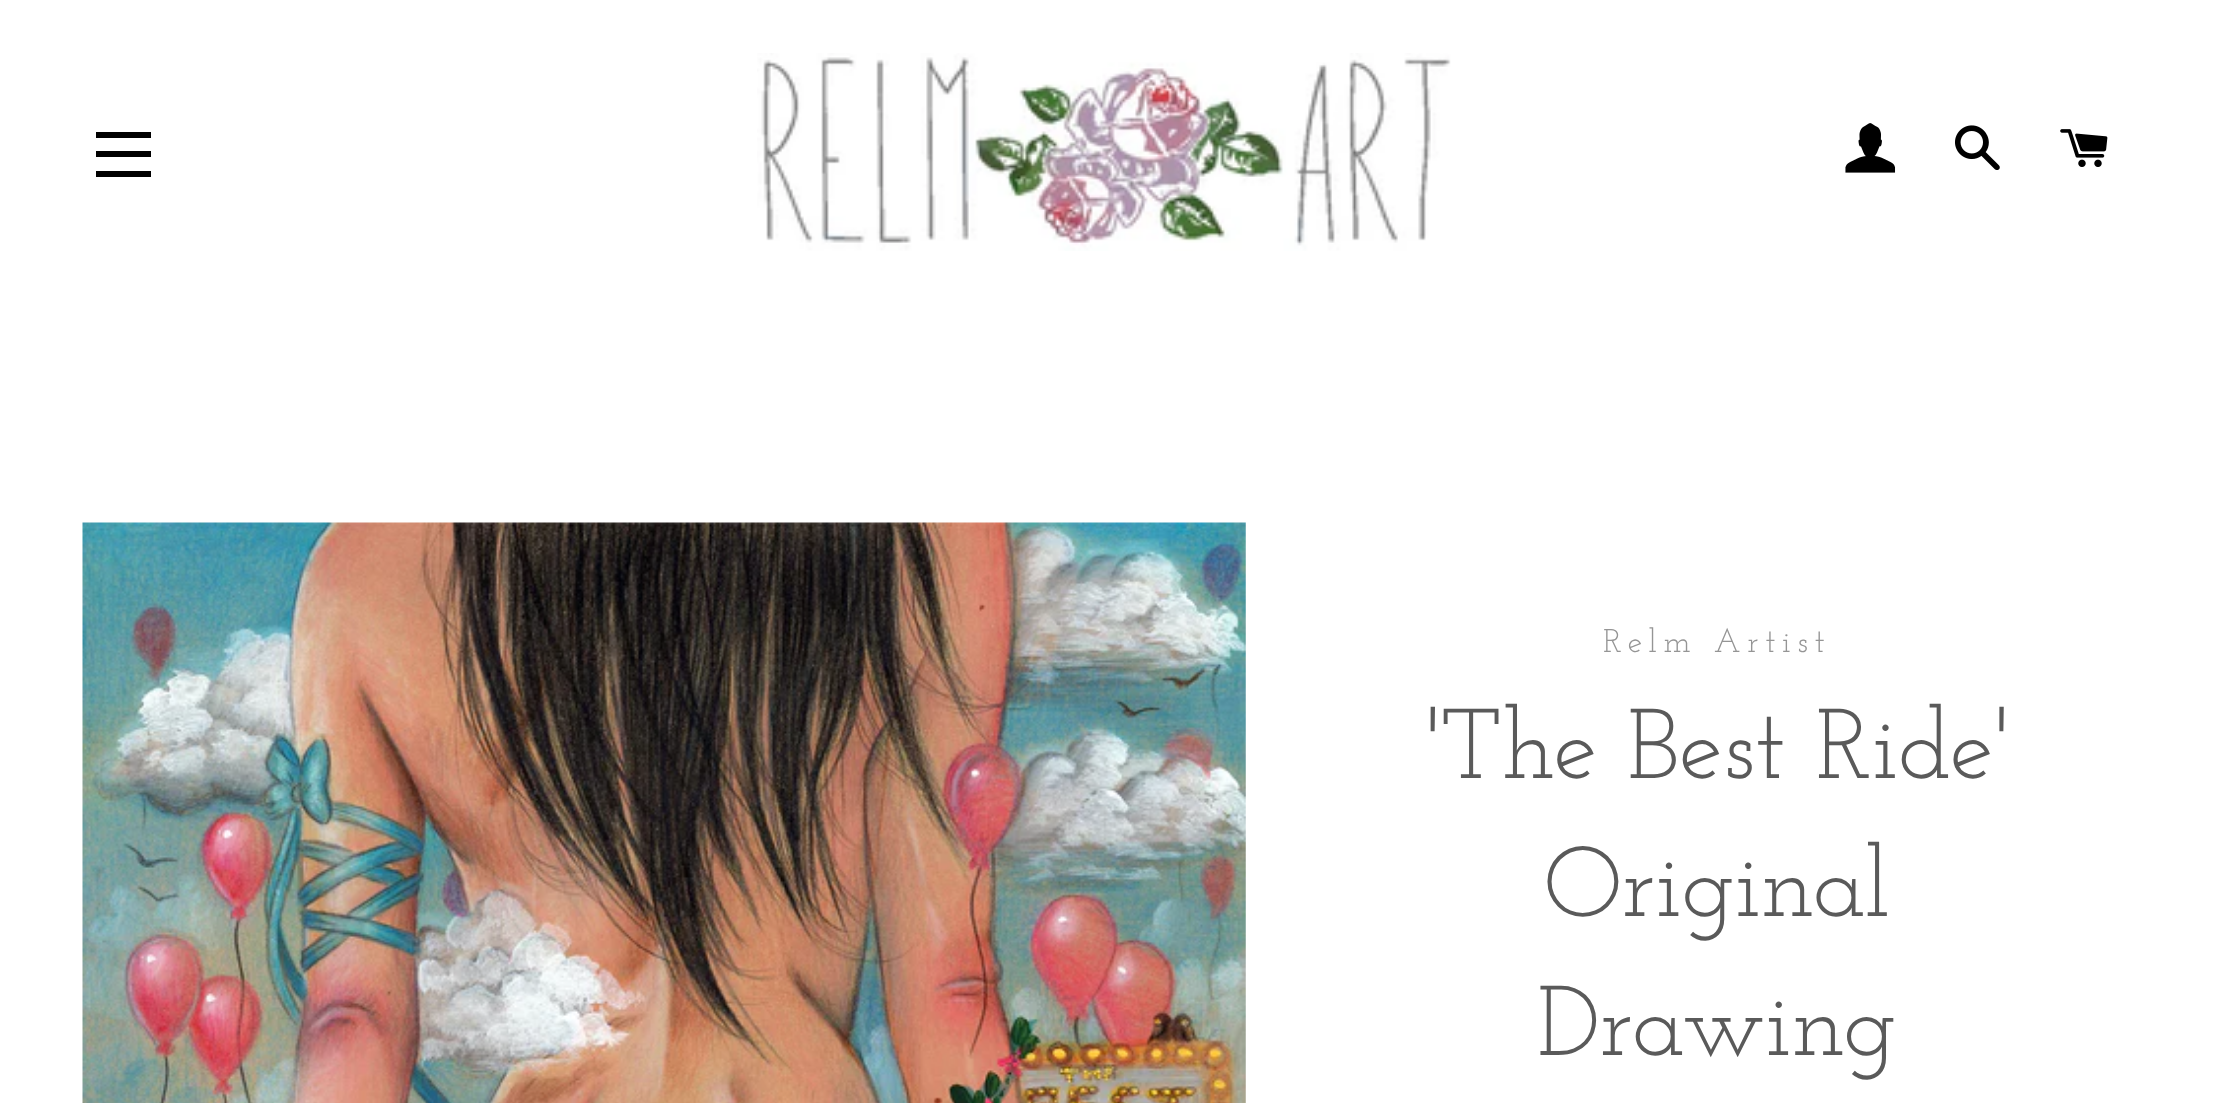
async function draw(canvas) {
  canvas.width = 2215;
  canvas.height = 1103;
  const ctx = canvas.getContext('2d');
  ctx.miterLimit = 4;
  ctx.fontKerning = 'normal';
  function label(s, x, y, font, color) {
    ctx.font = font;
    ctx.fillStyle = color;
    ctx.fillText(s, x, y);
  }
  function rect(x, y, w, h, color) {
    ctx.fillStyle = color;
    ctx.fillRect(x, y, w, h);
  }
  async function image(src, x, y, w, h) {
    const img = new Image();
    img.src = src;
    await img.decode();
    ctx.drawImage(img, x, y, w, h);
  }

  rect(0, 0, 2215, 1103, '#fff');
  rect(96, 132, 55, 6, '#000');
  rect(96, 151, 55, 6, '#000');
  rect(96, 171, 55, 6, '#000');
  await image('assets/img1.png', 757, 53, 694, 198);
  await image('assets/img2.png', 1845, 123, 51, 50);
  await image('assets/img3.png', 1955, 125, 45, 45);
  await image('assets/img4.png', 2060, 129, 48, 38);
  await image('assets/img5.png', 82, 522, 1164, 581);
  ctx.letterSpacing = '6.6px';
  label('Relm Artist', 1603, 652, '33px Josefin Slab', '#959595');
  ctx.letterSpacing = '0px';
  label('\'The Best Ride\'', 1425, 778, '99px Josefin Slab', '#5a5a5a');
  label('Original', 1544, 916, '99px Josefin Slab', '#5a5a5a');
  label('Drawing', 1537, 1055, '99px Josefin Slab', '#5a5a5a');
}

draw(document.querySelector('canvas'));
